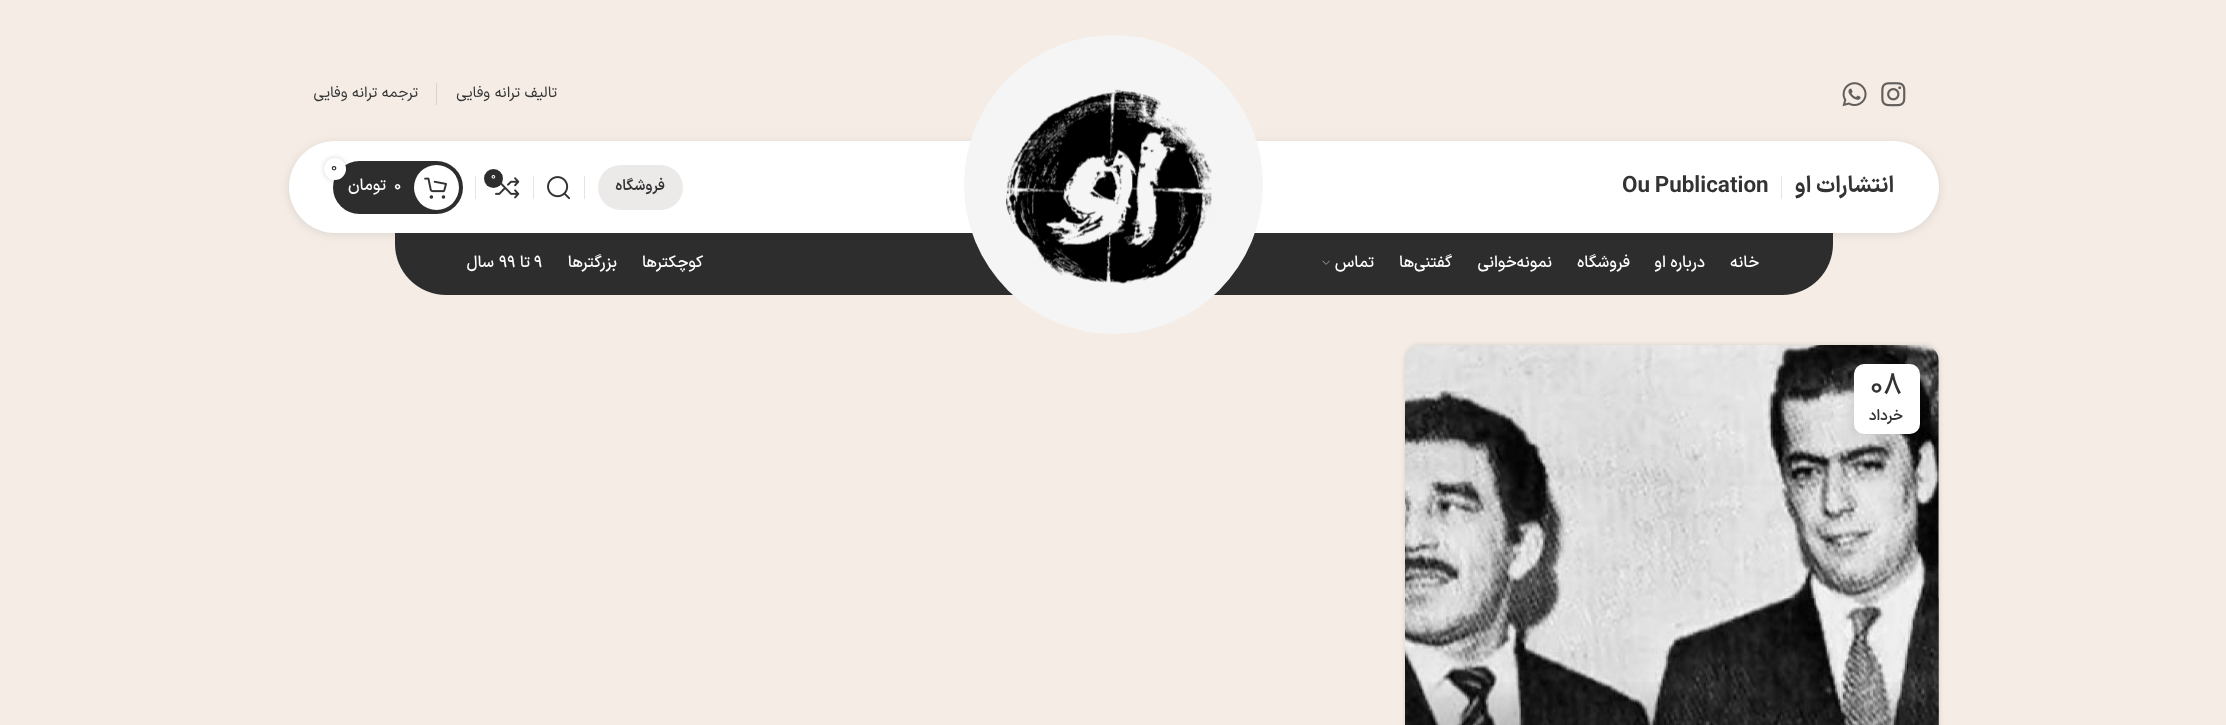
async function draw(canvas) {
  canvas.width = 2226;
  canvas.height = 725;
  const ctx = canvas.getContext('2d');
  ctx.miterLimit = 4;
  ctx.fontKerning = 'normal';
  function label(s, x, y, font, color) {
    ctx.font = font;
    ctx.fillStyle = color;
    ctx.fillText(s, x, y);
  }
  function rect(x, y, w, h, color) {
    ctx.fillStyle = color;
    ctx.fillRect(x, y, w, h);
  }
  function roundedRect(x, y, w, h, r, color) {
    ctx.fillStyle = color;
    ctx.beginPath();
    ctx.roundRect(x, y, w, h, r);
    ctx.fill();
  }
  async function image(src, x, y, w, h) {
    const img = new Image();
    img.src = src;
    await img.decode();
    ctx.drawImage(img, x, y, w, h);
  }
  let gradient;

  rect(0, 0, 2226, 725, '#f4ece5');
  await image('assets/img1.png', 1881, 82, 25, 25);
  await image('assets/img2.png', 1842, 82, 25, 25);
  ctx.direction = 'rtl';
  label('تالیف ترانه وفایی', 557, 97, '15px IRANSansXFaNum', '#333');
  rect(436, 83, 1, 22, '#dad3cd');
  label('ترجمه ترانه وفایی', 418, 97, '15px IRANSansXFaNum', '#333');
  ctx.fillStyle = '#0000001a';
  ctx.filter = 'blur(5px)';
  ctx.beginPath();
  ctx.roundRect(289, 143, 1650, 91, 45.5);
  ctx.fill();
  ctx.filter = 'none';
  roundedRect(289, 141, 1650, 92, 46, '#fff');
  label('انتشارات او', 1894, 192, 'bold 22.5px IRANSansXFaNum', '#333');
  rect(1781, 176, 1, 23, '#e4e4e4');
  ctx.direction = 'ltr';
  label('Ou Publication', 1622, 192, 'bold 22.5px IRANSansXFaNum', '#333');
  ctx.fillStyle = '#2d2d2d';
  ctx.beginPath();
  ctx.roundRect(395, 233, 1438, 62, [0, 0, 51, 51]);
  ctx.fill();
  ctx.fillStyle = '#f5f5f5';
  ctx.beginPath();
  ctx.arc(1113.5, 184.5, 149.5, 0, 2 * Math.PI);
  ctx.fill();
  await image('assets/img3.png', 1006, 89, 206, 195);
  roundedRect(598, 165, 85, 45, 22.5, '#ece9e9');
  ctx.direction = 'rtl';
  label('فروشگاه', 665, 190, '600 15px IRANSansXFaNum', '#333');
  rect(584, 176, 1, 23, '#e4e4e4');
  await image('assets/img4.png', 547, 176, 24, 24);
  rect(533, 176, 1, 23, '#e4e4e4');
  await image('assets/img5.png', 495, 177, 25, 22);
  ctx.fillStyle = '#2d2d2d';
  ctx.beginPath();
  ctx.arc(493.5, 178.5, 9.5, 0, 2 * Math.PI);
  ctx.fill();
  ctx.direction = 'ltr';
  label('0', 491, 179, '11px IRANSansXFaNum', '#fff');
  rect(475, 176, 1, 23, '#e4e4e4');
  roundedRect(333, 161, 130, 53, 26.5, '#2d2d2d');
  ctx.fillStyle = '#fff';
  ctx.beginPath();
  ctx.arc(436.5, 187.5, 22.5, 0, 2 * Math.PI);
  ctx.fill();
  ctx.fillStyle = '#0000002b';
  ctx.filter = 'blur(2.5px)';
  ctx.beginPath();
  ctx.roundRect(324, 158, 22, 22, 11);
  ctx.fill();
  ctx.filter = 'none';
  ctx.fillStyle = '#fff';
  ctx.beginPath();
  ctx.arc(335, 169, 11, 0, 2 * Math.PI);
  ctx.fill();
  label('0', 331, 171, '14px IRANSansXFaNum', '#2d2d2d');
  await image('assets/img6.png', 424, 177, 23, 22);
  label('0', 394, 190, '500 16.25px IRANSansXFaNum', '#fff');
  ctx.direction = 'rtl';
  label('تومان', 386, 190, '500 16.25px IRANSansXFaNum', '#fff');
  label('خانه', 1759, 267, '500 16.25px IRANSansXFaNum', '#fff');
  label('درباره او', 1705, 267, '500 16.25px IRANSansXFaNum', '#fff');
  label('فروشگاه', 1630, 267, '500 16.25px IRANSansXFaNum', '#fff');
  label('نمونه‌خوانی', 1552, 267, '500 16.25px IRANSansXFaNum', '#fff');
  label('گفتنی‌ها', 1452, 267, '500 16.25px IRANSansXFaNum', '#fff');
  label('تماس', 1374, 267, '500 16.25px IRANSansXFaNum', '#fff');
  await image('assets/img7.png', 1322, 260, 8, 5);
  label('کوچکترها', 703, 267, '500 16.25px IRANSansXFaNum', '#fff');
  label('بزرگترها', 617, 267, '500 16.25px IRANSansXFaNum', '#fff');
  ctx.direction = 'ltr';
  label('9', 534, 267, '500 16.25px IRANSansXFaNum', '#fff');
  ctx.direction = 'rtl';
  label('تا', 530, 267, '500 16.25px IRANSansXFaNum', '#fff');
  ctx.direction = 'ltr';
  label('99', 499, 267, '500 16.25px IRANSansXFaNum', '#fff');
  ctx.direction = 'rtl';
  label('سال', 494, 267, '500 16.25px IRANSansXFaNum', '#fff');
  ctx.fillStyle = '#0000001f';
  ctx.filter = 'blur(2.5px)';
  ctx.beginPath();
  ctx.roundRect(1405, 345, 534, 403, 15);
  ctx.fill();
  ctx.filter = 'none';
  await image('assets/img8.png', 1405, 345, 534, 380);
  ctx.fillStyle = '#0000001a';
  ctx.filter = 'blur(5.5px)';
  ctx.beginPath();
  ctx.roundRect(1854, 364, 66, 70, 10);
  ctx.fill();
  ctx.filter = 'none';
  roundedRect(1854, 364, 66, 70, 10, '#fff');
  ctx.direction = 'ltr';
  label('08', 1870, 394, '30px IRANSansXFaNum', '#333');
  ctx.direction = 'rtl';
  label('خرداد', 1903, 420, '600 15px IRANSansXFaNum', '#333');
  gradient = ctx.createLinearGradient(1672, 665, 1672, 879);
  gradient.addColorStop(0.05, '#00000000');
  gradient.addColorStop(0.5, '#00000059');
  gradient.addColorStop(1, '#000000cc');
  ctx.fillStyle = gradient;
  ctx.fillRect(1405, 682, 534, 43);
}

draw(document.querySelector('canvas'));
